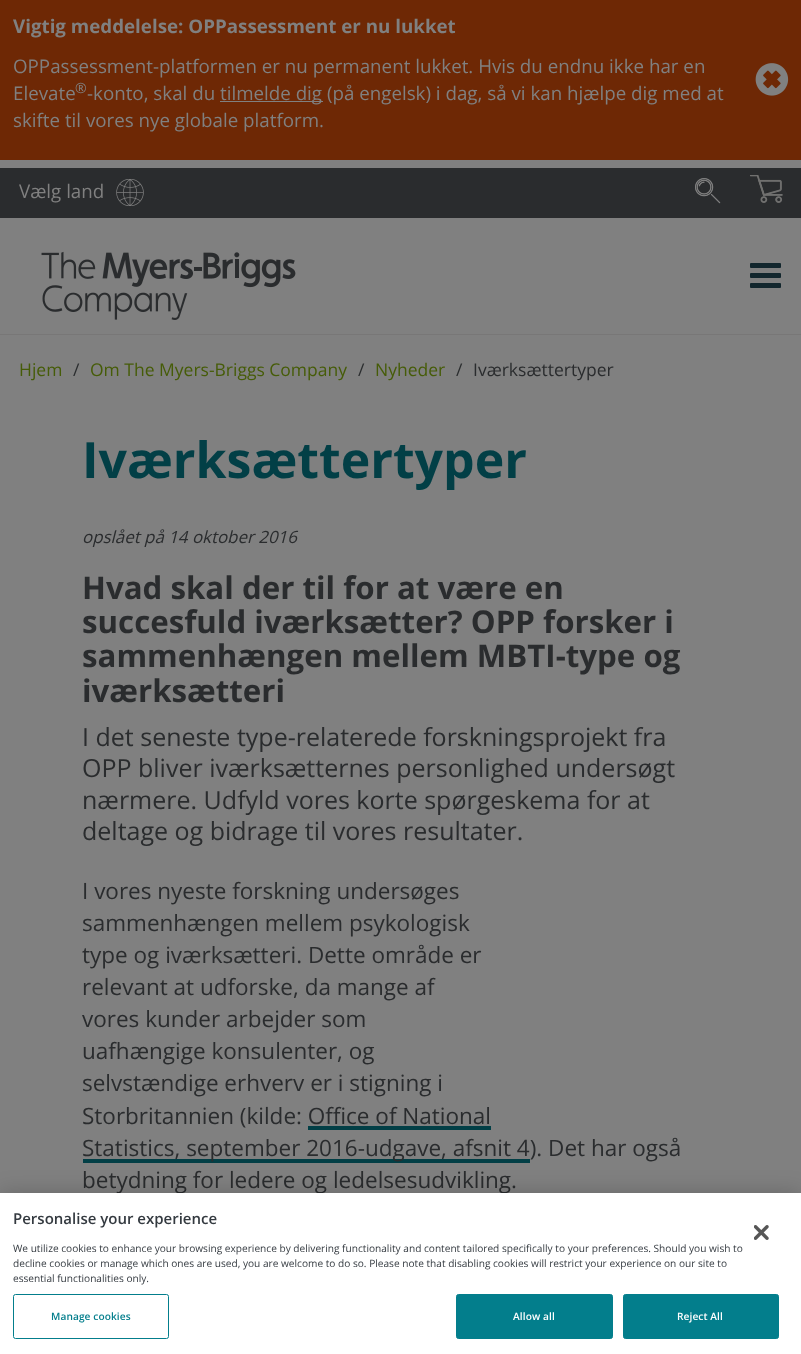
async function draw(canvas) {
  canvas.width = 801;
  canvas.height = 1354;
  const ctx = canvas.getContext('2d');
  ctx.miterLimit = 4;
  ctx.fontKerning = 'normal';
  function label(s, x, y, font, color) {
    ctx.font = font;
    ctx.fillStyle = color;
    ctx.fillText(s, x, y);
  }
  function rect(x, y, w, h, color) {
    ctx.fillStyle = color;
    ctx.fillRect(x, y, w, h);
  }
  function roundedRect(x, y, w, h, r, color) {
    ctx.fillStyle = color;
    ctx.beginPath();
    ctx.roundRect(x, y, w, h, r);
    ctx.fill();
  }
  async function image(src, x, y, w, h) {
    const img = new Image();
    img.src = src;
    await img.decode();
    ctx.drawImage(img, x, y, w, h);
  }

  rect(0, 0, 801, 1354, '#808080');
  rect(0, 0, 801, 160, '#6e2805');
  label('Vigtig meddelelse: OPPassessment er nu lukket', 13, 33, 'bold 18.75px Open Sans', '#808080');
  label('OPPassessment-platformen er nu permanent lukket. Hvis du endnu ikke har en', 13, 73, '18.75px Open Sans', '#808080');
  label('Elevate', 13, 100, '18.75px Open Sans', '#808080');
  label('®', 75, 93, '14px Open Sans', '#808080');
  label('-konto, skal du', 87, 100, '18.75px Open Sans', '#808080');
  rect(220, 101, 103, 1, '#808080');
  label('tilmelde dig (på engelsk) i dag, så vi kan hjælpe dig med at', 220, 100, '18.75px Open Sans', '#808080');
  label('skifte til vores nye globale platform.', 13, 127, '18.75px Open Sans', '#808080');
  await image('assets/img1.png', 755, 63, 34, 33);
  rect(0, 334, 801, 1, '#787777');
  rect(0, 168, 801, 50, '#2a2c2e');
  label('Vælg land', 19, 198, '18.75px Open Sans', '#808080');
  await image('assets/img2.png', 116, 179, 28, 27);
  await image('assets/img3.png', 695, 178, 26, 26);
  await image('assets/img4.png', 750, 175, 33, 28);
  await image('assets/img5.png', 41, 251, 255, 69);
  roundedRect(750, 263, 31, 5, 1, '#12262d');
  roundedRect(750, 273, 31, 5, 1, '#12262d');
  roundedRect(750, 283, 31, 5, 1, '#12262d');
  label('Hjem', 19, 376, '17.5px Open Sans', '#465c08');
  label('/', 73, 376, '17.5px Open Sans', '#2a2c2e');
  label('Om The Myers-Briggs Company', 90, 376, '17.5px Open Sans', '#465c08');
  label('/', 358, 376, '17.5px Open Sans', '#2a2c2e');
  label('Nyheder', 375, 376, '17.5px Open Sans', '#465c08');
  label('/', 456, 376, '17.5px Open Sans', '#2a2c2e');
  label('Iværksættertyper', 473, 376, '17.5px Open Sans', '#2a2c2e');
  label('Iværksættertyper', 82, 478, 'bold 50px Open Sans', '#023f46');
  label('opslået på 14 oktober 2016', 82, 543, 'italic 16.9px Open Sans', '#2a2c2e');
  label('Hvad skal der til for at være en', 82, 599, 'bold 31.25px Open Sans', '#2a2c2e');
  label('succesfuld iværksætter? OPP forsker i', 82, 633, 'bold 31.25px Open Sans', '#2a2c2e');
  label('sammenhængen mellem MBTI-type og', 82, 667, 'bold 31.25px Open Sans', '#2a2c2e');
  label('iværksætteri', 82, 702, 'bold 31.25px Open Sans', '#2a2c2e');
  label('I det seneste type-relaterede forskningsprojekt fra', 82, 746, '25px Open Sans', '#2a2c2e');
  label('OPP bliver iværksætternes personlighed undersøgt', 82, 777, '25px Open Sans', '#2a2c2e');
  label('nærmere. Udfyld vores korte spørgeskema for at', 82, 809, '25px Open Sans', '#2a2c2e');
  label('deltage og bidrage til vores resultater.', 82, 840, '25px Open Sans', '#2a2c2e');
  label('I vores nyeste forskning undersøges', 82, 899, '22.5px Open Sans', '#2a2c2e');
  label('sammenhængen mellem psykologisk', 82, 931, '22.5px Open Sans', '#2a2c2e');
  label('type og iværksætteri. Dette område er', 82, 963, '22.5px Open Sans', '#2a2c2e');
  label('relevant at udforske, da mange af', 82, 995, '22.5px Open Sans', '#2a2c2e');
  label('vores kunder arbejder som', 82, 1027, '22.5px Open Sans', '#2a2c2e');
  label('uafhængige konsulenter, og', 82, 1059, '22.5px Open Sans', '#2a2c2e');
  label('selvstændige erhverv er i stigning i', 82, 1091, '22.5px Open Sans', '#2a2c2e');
  label('Storbritannien (kilde: Office of National', 82, 1124, '22.5px Open Sans', '#2a2c2e');
  rect(83, 1159, 447, 4, '#023f46');
  label('Statistics, september 2016-udgave, afsnit 4). Det har også', 82, 1156, '22.5px Open Sans', '#2a2c2e');
  rect(308, 1126, 183, 4, '#023f46');
  label('betydning for ledere og ledelsesudvikling.', 82, 1188, '22.5px Open Sans', '#2a2c2e');
  ctx.fillStyle = '#00000033';
  ctx.filter = 'blur(11px)';
  ctx.beginPath();
  ctx.rect(0, 1193, 801, 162);
  ctx.fill();
  ctx.filter = 'none';
  rect(0, 1193, 801, 161, '#fff');
  label('Personalise your experience', 13, 1224, '600 15px Open Sans', '#343a40');
  label('We utilize cookies to enhance your browsing experience by delivering functionality and content tailored specifically to your preferences. Should you wish to', 13, 1252, '10.15px Open Sans', '#343a40');
  label('decline cookies or manage which ones are used, you are welcome to do so. Please note that disabling cookies will restrict your experience on our site to', 13, 1267, '10.15px Open Sans', '#343a40');
  label('essential functionalities only.', 13, 1282, '10.15px Open Sans', '#343a40');
  ctx.beginPath();
  ctx.roundRect(13.5, 1294.5, 155, 44, 2);
  ctx.strokeStyle = '#037e8c';
  ctx.stroke();
  ctx.letterSpacing = '0.1px';
  label('Manage cookies', 51, 1320, '600 10.15px Open Sans', '#037e8c');
  ctx.beginPath();
  ctx.roundRect(456.5, 1294.5, 156, 44, 2);
  ctx.fill();
  ctx.stroke();
  label('Allow all', 513, 1320, '600 10.15px Open Sans', '#fff');
  ctx.fillStyle = '#037e8c';
  ctx.beginPath();
  ctx.roundRect(623.5, 1294.5, 155, 44, 2);
  ctx.fill();
  ctx.stroke();
  label('Reject All', 677, 1320, '600 10.15px Open Sans', '#fff');
  await image('assets/img6.png', 754, 1225, 15, 15);
}

draw(document.querySelector('canvas'));
